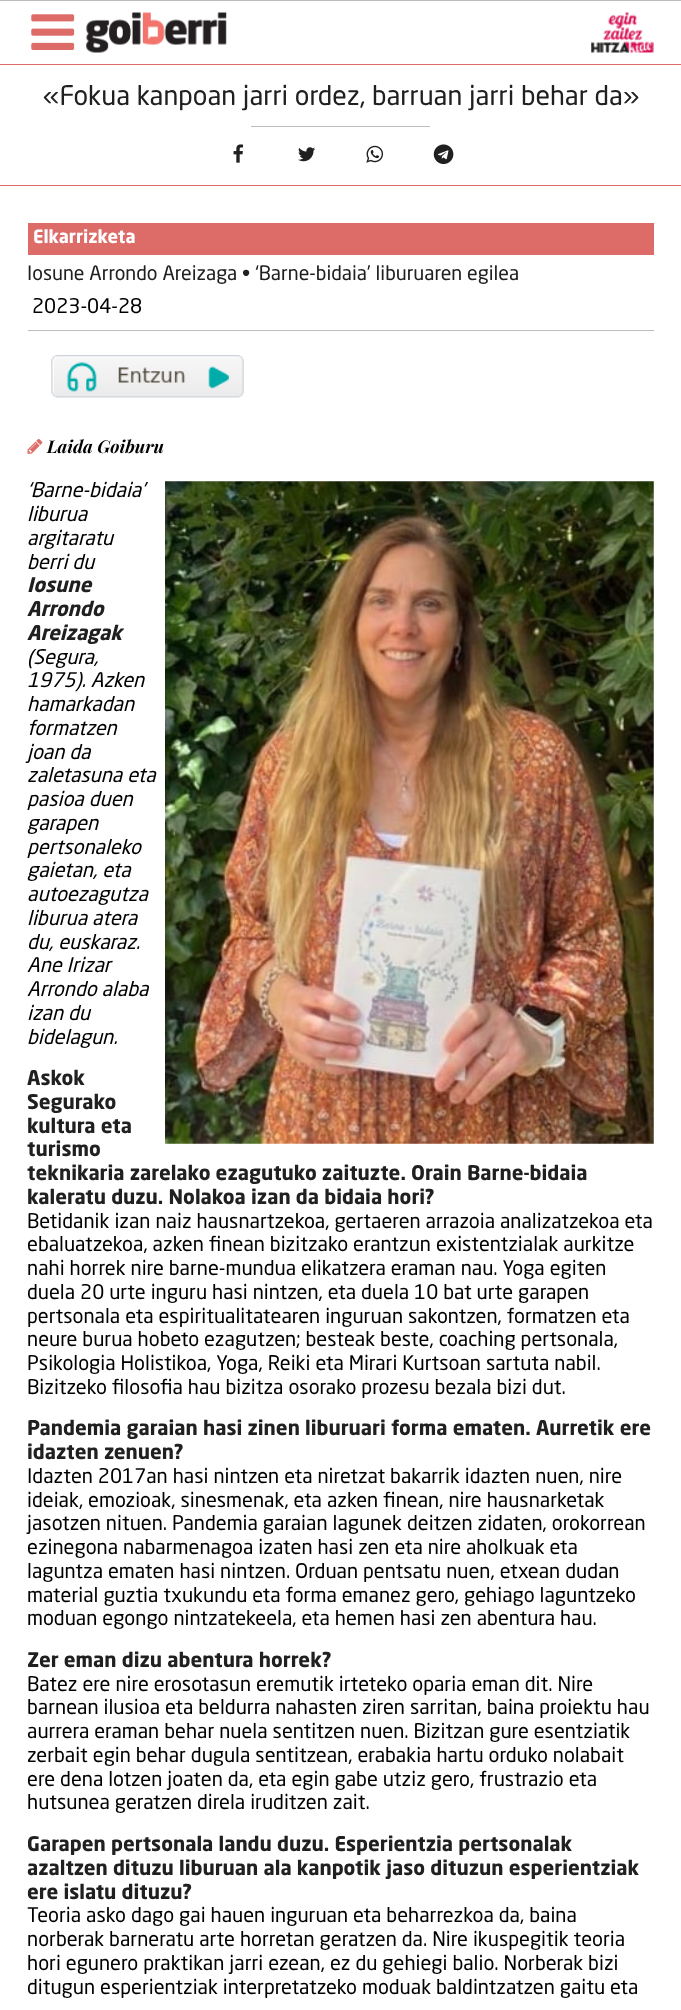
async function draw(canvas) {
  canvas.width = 681;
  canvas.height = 2010;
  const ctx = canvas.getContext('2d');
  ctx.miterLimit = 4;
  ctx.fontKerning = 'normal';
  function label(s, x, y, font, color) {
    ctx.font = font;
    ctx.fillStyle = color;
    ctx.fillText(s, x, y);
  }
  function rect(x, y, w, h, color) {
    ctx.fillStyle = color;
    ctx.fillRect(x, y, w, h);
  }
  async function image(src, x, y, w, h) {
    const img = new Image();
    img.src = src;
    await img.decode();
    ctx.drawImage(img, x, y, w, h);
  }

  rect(0, 0, 681, 2010, '#fff');
  rect(0, 0, 681, 1, '#bcbcbc');
  rect(0, 64, 681, 1, '#dd6c69');
  await image('assets/img1.png', 31, 14, 44, 36);
  await image('assets/img2.png', 86, 12, 141, 41);
  await image('assets/img3.png', 591, 12, 63, 41);
  rect(0, 185, 681, 1, '#dd6c69');
  label('«Fokua kanpoan jarri ordez, barruan jarri behar da»', 43, 105, '26.75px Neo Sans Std', '#202020');
  rect(251, 126, 179, 1, '#bcbcbc');
  await image('assets/img4.png', 233, 144, 10, 19);
  await image('assets/img5.png', 298, 147, 17, 15);
  await image('assets/img6.png', 366, 145, 18, 18);
  await image('assets/img7.png', 433, 144, 21, 21);
  rect(28, 223, 626, 32, '#dd6c69');
  label('Elkarrizketa', 33, 243, 'bold 18px Neo Sans Std', '#fff');
  label('Iosune Arrondo Areizaga • ‘Barne-bidaia’ liburuaren egilea', 27, 280, '19.6px Neo Sans Std', '#202020');
  rect(28, 330, 626, 1, '#bcbcbc');
  label('2023-04-28', 32, 313, '20px Neo Sans Std', '#000');
  await image('assets/img8.png', 51, 355, 193, 43);
  await image('assets/img9.png', 27, 439, 16, 15);
  label('Laida Goiburu', 47, 453, 'italic bold 17.5px Playfair Display', '#000');
  label('‘Barne-bidaia’', 27, 497, 'italic 20px Neo Sans Std', '#000');
  await image('assets/img10.png', 165, 481, 489, 663);
  label('liburua', 27, 521, 'italic 20px Neo Sans Std', '#000');
  label('argitaratu', 27, 545, 'italic 20px Neo Sans Std', '#000');
  label('berri du', 27, 569, 'italic 20px Neo Sans Std', '#000');
  label('Iosune', 27, 592, 'italic bold 20px Neo Sans Std', '#202020');
  label('Arrondo', 27, 616, 'italic bold 20px Neo Sans Std', '#202020');
  label('Areizagak', 27, 640, 'italic bold 20px Neo Sans Std', '#202020');
  label('(Segura,', 27, 664, 'italic 20px Neo Sans Std', '#000');
  label('1975). Azken', 27, 687, 'italic 20px Neo Sans Std', '#000');
  label('hamarkadan', 27, 711, 'italic 20px Neo Sans Std', '#000');
  label('formatzen', 27, 735, 'italic 20px Neo Sans Std', '#000');
  label('joan da', 27, 759, 'italic 20px Neo Sans Std', '#000');
  label('zaletasuna eta', 27, 782, 'italic 20px Neo Sans Std', '#000');
  label('pasioa duen', 27, 806, 'italic 20px Neo Sans Std', '#000');
  label('garapen', 27, 830, 'italic 20px Neo Sans Std', '#000');
  label('pertsonaleko', 27, 854, 'italic 20px Neo Sans Std', '#000');
  label('gaietan, eta', 27, 877, 'italic 20px Neo Sans Std', '#000');
  label('autoezagutza', 27, 901, 'italic 20px Neo Sans Std', '#000');
  label('liburua atera', 27, 925, 'italic 20px Neo Sans Std', '#000');
  label('du, euskaraz.', 27, 949, 'italic 20px Neo Sans Std', '#000');
  label('Ane Irizar', 27, 972, 'italic 20px Neo Sans Std', '#000');
  label('Arrondo alaba', 27, 996, 'italic 20px Neo Sans Std', '#000');
  label('izan du', 27, 1020, 'italic 20px Neo Sans Std', '#000');
  label('bidelagun.', 27, 1044, 'italic 20px Neo Sans Std', '#000');
  label('Askok', 27, 1085, 'bold 20px Neo Sans Std', '#202020');
  label('Segurako', 27, 1109, 'bold 20px Neo Sans Std', '#202020');
  label('kultura eta', 27, 1133, 'bold 20px Neo Sans Std', '#202020');
  label('turismo', 27, 1156, 'bold 20px Neo Sans Std', '#202020');
  label('teknikaria zarelako ezagutuko zaituzte. Orain Barne-bidaia', 27, 1180, 'bold 20px Neo Sans Std', '#202020');
  label('kaleratu duzu. Nolakoa izan da bidaia hori?', 27, 1204, 'bold 20px Neo Sans Std', '#202020');
  label('Betidanik izan naiz hausnartzekoa, gertaeren arrazoia analizatzekoa eta', 27, 1228, '20px Neo Sans Std', '#000');
  label('ebaluatzekoa, azken finean bizitzako erantzun existentzialak aurkitze', 27, 1251, '20px Neo Sans Std', '#000');
  label('nahi horrek nire barne-mundua elikatzera eraman nau. Yoga egiten', 27, 1275, '20px Neo Sans Std', '#000');
  label('duela 20 urte inguru hasi nintzen, eta duela 10 bat urte garapen', 27, 1299, '20px Neo Sans Std', '#000');
  label('pertsonala eta espiritualitatearen inguruan sakontzen, formatzen eta', 27, 1323, '20px Neo Sans Std', '#000');
  label('neure burua hobeto ezagutzen; besteak beste, coaching pertsonala,', 27, 1346, '20px Neo Sans Std', '#000');
  label('Psikologia Holistikoa, Yoga, Reiki eta Mirari Kurtsoan sartuta nabil.', 27, 1370, '20px Neo Sans Std', '#000');
  label('Bizitzeko filosofia hau bizitza osorako prozesu bezala bizi dut.', 27, 1394, '20px Neo Sans Std', '#000');
  label('Pandemia garaian hasi zinen liburuari forma ematen. Aurretik ere', 27, 1435, 'bold 20px Neo Sans Std', '#202020');
  label('idazten zenuen?', 27, 1459, 'bold 20px Neo Sans Std', '#202020');
  label('Idazten 2017an hasi nintzen eta niretzat bakarrik idazten nuen, nire', 27, 1483, '20px Neo Sans Std', '#000');
  label('ideiak, emozioak, sinesmenak, eta azken finean, nire hausnarketak', 27, 1507, '20px Neo Sans Std', '#000');
  label('jasotzen nituen. Pandemia garaian lagunek deitzen zidaten, orokorrean', 27, 1530, '20px Neo Sans Std', '#000');
  label('ezinegona nabarmenagoa izaten hasi zen eta nire aholkuak eta', 27, 1554, '20px Neo Sans Std', '#000');
  label('laguntza ematen hasi nintzen. Orduan pentsatu nuen, etxean dudan', 27, 1578, '20px Neo Sans Std', '#000');
  label('material guztia txukundu eta forma emanez gero, gehiago laguntzeko', 27, 1602, '20px Neo Sans Std', '#000');
  label('moduan egongo nintzatekeela, eta hemen hasi zen abentura hau.', 27, 1625, '20px Neo Sans Std', '#000');
  label('Zer eman dizu abentura horrek?', 27, 1667, 'bold 20px Neo Sans Std', '#202020');
  label('Batez ere nire erosotasun eremutik irteteko oparia eman dit. Nire', 27, 1691, '20px Neo Sans Std', '#000');
  label('barnean ilusioa eta beldurra nahasten ziren sarritan, baina proiektu hau', 27, 1714, '20px Neo Sans Std', '#000');
  label('aurrera eraman behar nuela sentitzen nuen. Bizitzan gure esentziatik', 27, 1738, '20px Neo Sans Std', '#000');
  label('zerbait egin behar dugula sentitzean, erabakia hartu orduko nolabait', 27, 1762, '20px Neo Sans Std', '#000');
  label('ere dena lotzen joaten da, eta egin gabe utziz gero, frustrazio eta', 27, 1786, '20px Neo Sans Std', '#000');
  label('hutsunea geratzen direla iruditzen zait.', 27, 1809, '20px Neo Sans Std', '#000');
  label('Garapen pertsonala landu duzu. Esperientzia pertsonalak', 27, 1851, 'bold 20px Neo Sans Std', '#202020');
  label('azaltzen dituzu liburuan ala kanpotik jaso dituzun esperientziak', 27, 1875, 'bold 20px Neo Sans Std', '#202020');
  label('ere islatu dituzu?', 27, 1899, 'bold 20px Neo Sans Std', '#202020');
  label('Teoria asko dago gai hauen inguruan eta beharrezkoa da, baina', 27, 1922, '20px Neo Sans Std', '#000');
  label('norberak barneratu arte horretan geratzen da. Nire ikuspegitik teoria', 27, 1946, '20px Neo Sans Std', '#000');
  label('hori egunero praktikan jarri ezean, ez du gehiegi balio. Norberak bizi', 27, 1970, '20px Neo Sans Std', '#000');
  label('ditugun esperientziak interpretatzeko moduak baldintzatzen gaitu eta', 27, 1994, '20px Neo Sans Std', '#000');
}

draw(document.querySelector('canvas'));
